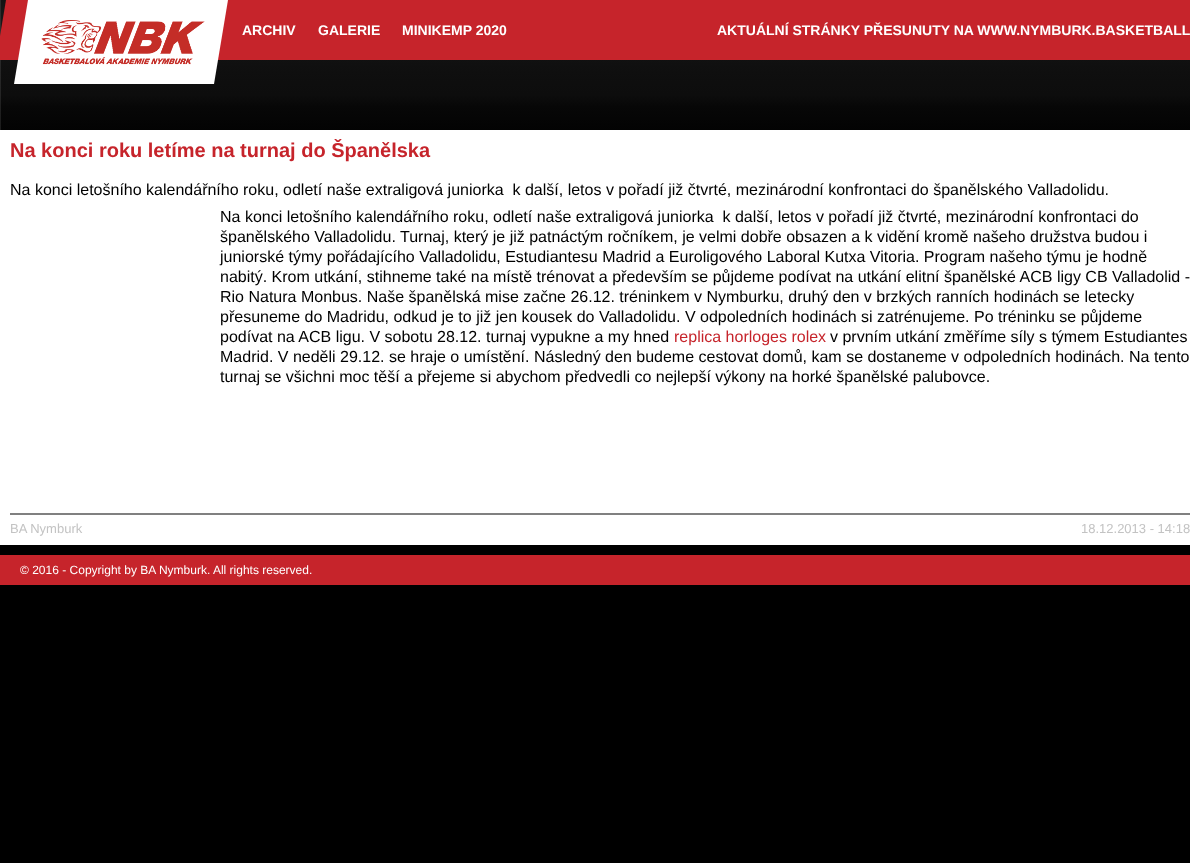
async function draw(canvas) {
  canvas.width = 1190;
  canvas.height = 863;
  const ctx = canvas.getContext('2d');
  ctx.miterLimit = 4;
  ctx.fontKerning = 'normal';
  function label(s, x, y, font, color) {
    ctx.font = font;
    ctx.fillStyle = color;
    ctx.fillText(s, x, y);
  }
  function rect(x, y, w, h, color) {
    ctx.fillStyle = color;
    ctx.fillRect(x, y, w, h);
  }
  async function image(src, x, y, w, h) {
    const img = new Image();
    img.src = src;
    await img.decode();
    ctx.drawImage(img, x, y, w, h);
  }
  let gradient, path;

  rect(0, 0, 1190, 863, '#000');
  gradient = ctx.createLinearGradient(600, 0, 600, 130);
  gradient.addColorStop(0, '#131313');
  gradient.addColorStop(0.09, '#161616');
  gradient.addColorStop(0.18, '#171717');
  gradient.addColorStop(0.27, '#151515');
  gradient.addColorStop(0.36, '#131313');
  gradient.addColorStop(0.45, '#111');
  gradient.addColorStop(0.55, '#0f0f0f');
  gradient.addColorStop(0.64, '#0e0e0e');
  gradient.addColorStop(0.73, '#0d0d0d');
  gradient.addColorStop(0.82, '#070707');
  gradient.addColorStop(0.91, '#050505');
  gradient.addColorStop(1, '#030303');
  ctx.fillStyle = gradient;
  ctx.fillRect(1, 0, 1189, 130);
  gradient = ctx.createLinearGradient(600, 0, 600, 130);
  gradient.addColorStop(0, '#2b2b2b');
  gradient.addColorStop(0.09, '#2d2d2d');
  gradient.addColorStop(0.18, '#2e2e2e');
  gradient.addColorStop(0.27, '#2c2c2c');
  gradient.addColorStop(0.36, '#2b2b2b');
  gradient.addColorStop(0.45, '#292929');
  gradient.addColorStop(0.55, '#272727');
  gradient.addColorStop(0.64, '#262626');
  gradient.addColorStop(0.73, '#252525');
  gradient.addColorStop(0.82, '#202020');
  gradient.addColorStop(0.91, '#1e1e1e');
  gradient.addColorStop(1, '#1c1c1c');
  ctx.fillStyle = gradient;
  ctx.fillRect(0, 0, 1, 130);
  ctx.fillStyle = '#c6242b';
  path = new Path2D('M6 0H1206L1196 60H-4Z');
  ctx.fill(path);
  ctx.fillStyle = '#fff';
  path = new Path2D('M28 0H228L214 84H14Z');
  ctx.fill(path);
  await image('assets/img1.png', 41, 20, 164, 45);
  label('ARCHIV', 242, 35, 'bold 14px Liberation Sans', '#fff');
  label('GALERIE', 318, 35, 'bold 14px Liberation Sans', '#fff');
  label('MINIKEMP 2020', 402, 35, 'bold 14px Liberation Sans', '#fff');
  label('AKTUÁLNÍ STRÁNKY PŘESUNUTY NA WWW.NYMBURK.BASKETBALL', 717, 35, 'bold 14px Liberation Sans', '#fff');
  rect(0, 130, 1190, 415, '#fff');
  label('Na konci roku letíme na turnaj do Španělska', 10, 157, 'bold 20px Liberation Sans', '#c6242b');
  label('Na konci letošního kalendářního roku, odletí naše extraligová juniorka  k další, letos v pořadí již čtvrté, mezinárodní konfrontaci do španělského Valladolidu.', 10, 195, '16px Liberation Sans', '#000');
  label('Na konci letošního kalendářního roku, odletí naše extraligová juniorka  k další, letos v pořadí již čtvrté, mezinárodní konfrontaci do', 220, 222, '16px Liberation Sans', '#000');
  label('španělského Valladolidu. Turnaj, který je již patnáctým ročníkem, je velmi dobře obsazen a k vidění kromě našeho družstva budou i', 220, 242, '16px Liberation Sans', '#000');
  label('juniorské týmy pořádajícího Valladolidu, Estudiantesu Madrid a Euroligového Laboral Kutxa Vitoria. Program našeho týmu je hodně', 220, 262, '16px Liberation Sans', '#000');
  label('nabitý. Krom utkání, stihneme také na místě trénovat a především se půjdeme podívat na utkání elitní španělské ACB ligy CB Valladolid -', 220, 282, '16px Liberation Sans', '#000');
  label('Rio Natura Monbus. Naše španělská mise začne 26.12. tréninkem v Nymburku, druhý den v brzkých ranních hodinách se letecky', 220, 302, '16px Liberation Sans', '#000');
  label('přesuneme do Madridu, odkud je to již jen kousek do Valladolidu. V odpoledních hodinách si zatrénujeme. Po tréninku se půjdeme', 220, 322, '16px Liberation Sans', '#000');
  label('podívat na ACB ligu. V sobotu 28.12. turnaj vypukne a my hned', 220, 342, '16px Liberation Sans', '#000');
  label('replica horloges rolex', 674, 342, '16px Liberation Sans', '#c6242b');
  label('v prvním utkání změříme síly s týmem Estudiantes', 830, 342, '16px Liberation Sans', '#000');
  label('Madrid. V neděli 29.12. se hraje o umístění. Následný den budeme cestovat domů, kam se dostaneme v odpoledních hodinách. Na tento', 220, 362, '16px Liberation Sans', '#000');
  label('turnaj se všichni moc těší a přejeme si abychom předvedli co nejlepší výkony na horké španělské palubovce.', 220, 382, '16px Liberation Sans', '#000');
  rect(10, 513, 1180, 2, '#808080');
  label('BA Nymburk', 10, 533, '13px Liberation Sans', '#c3c3c3');
  label('18.12.2013 - 14:18', 1081, 533, '13px Liberation Sans', '#c3c3c3');
  rect(0, 555, 1190, 30, '#c6242b');
  label('© 2016 - Copyright by BA Nymburk. All rights reserved.', 20, 574, '12px Liberation Sans', '#fff');
}

draw(document.querySelector('canvas'));
